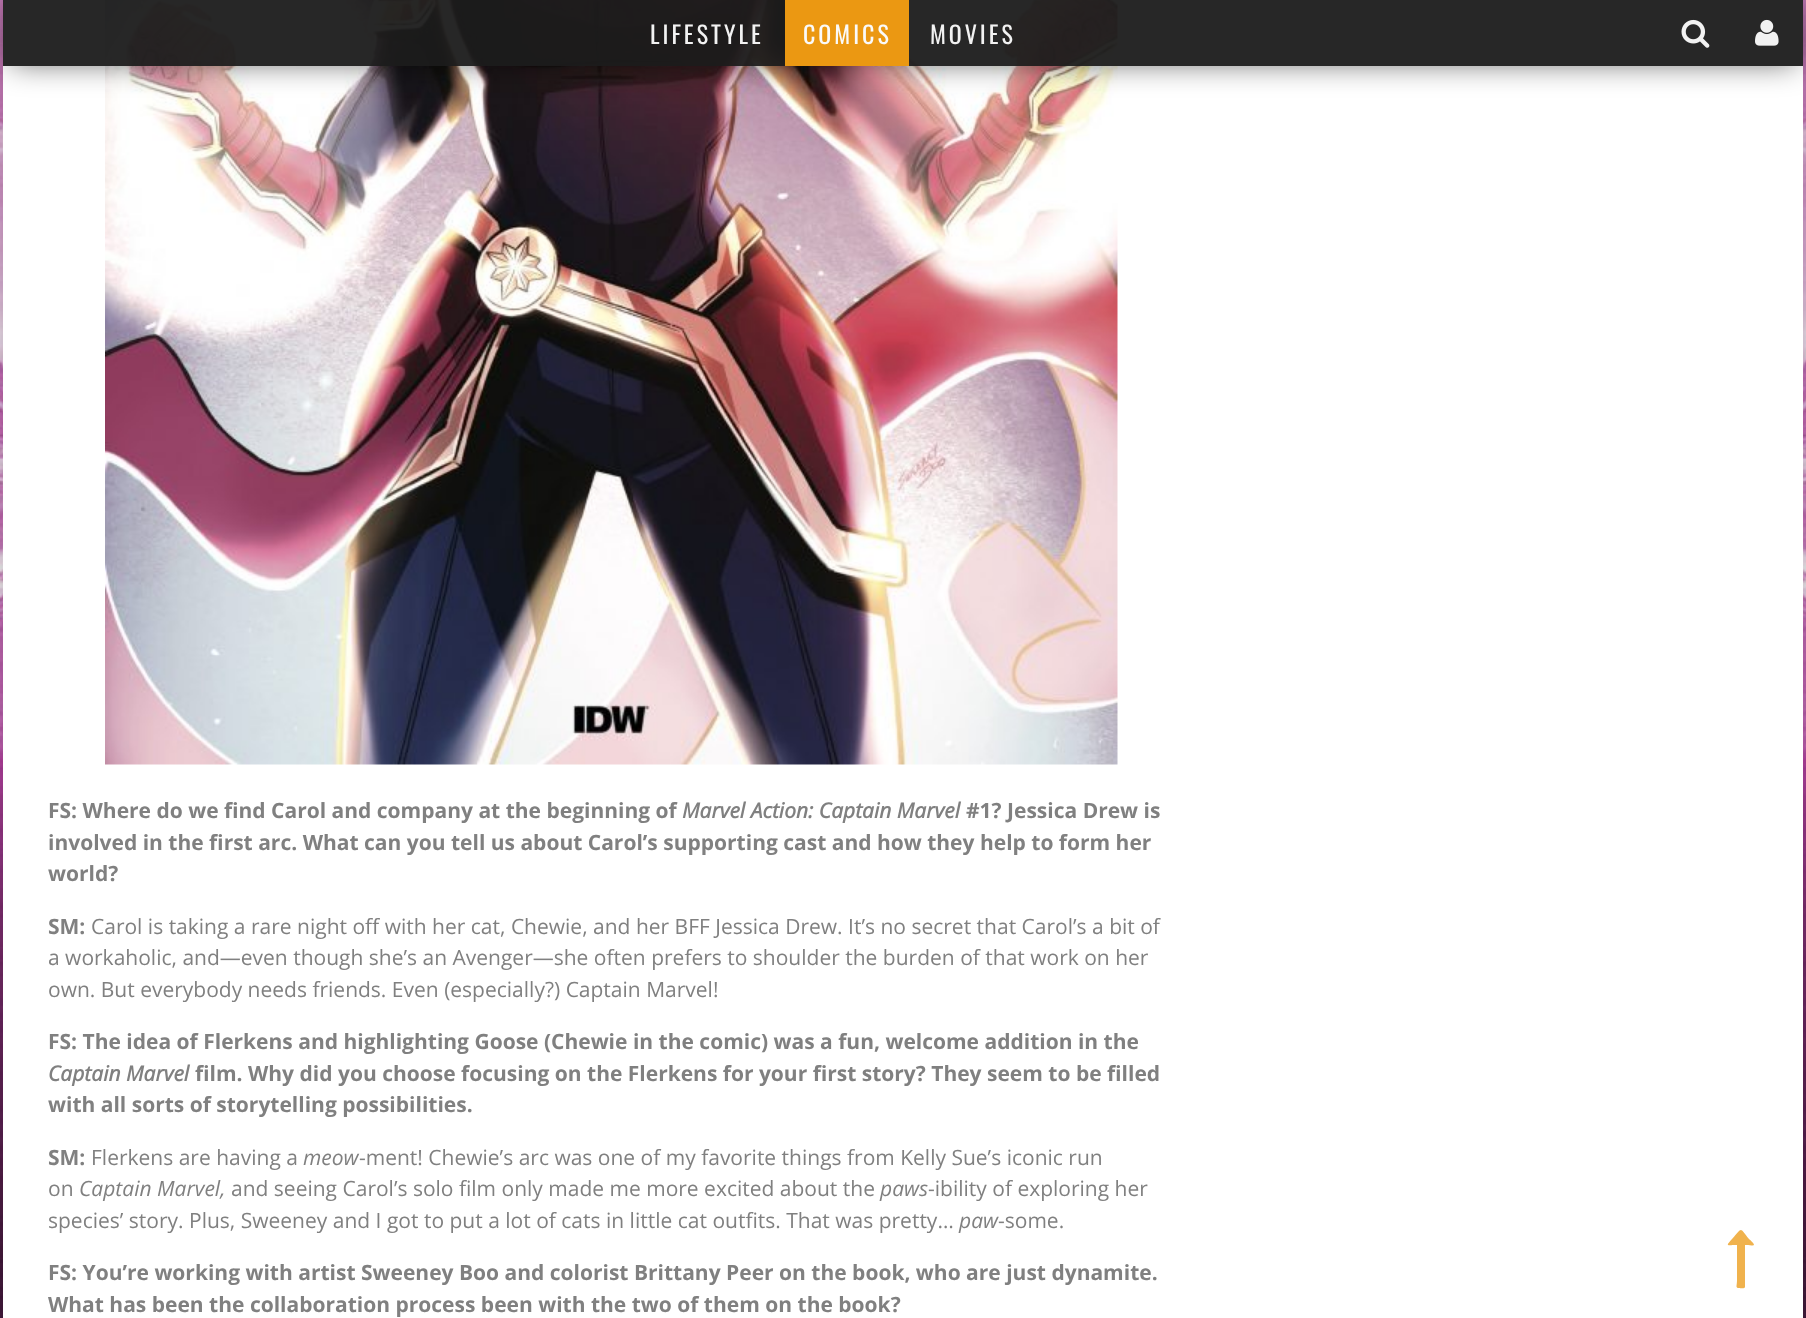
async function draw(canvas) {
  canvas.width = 1806;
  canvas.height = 1318;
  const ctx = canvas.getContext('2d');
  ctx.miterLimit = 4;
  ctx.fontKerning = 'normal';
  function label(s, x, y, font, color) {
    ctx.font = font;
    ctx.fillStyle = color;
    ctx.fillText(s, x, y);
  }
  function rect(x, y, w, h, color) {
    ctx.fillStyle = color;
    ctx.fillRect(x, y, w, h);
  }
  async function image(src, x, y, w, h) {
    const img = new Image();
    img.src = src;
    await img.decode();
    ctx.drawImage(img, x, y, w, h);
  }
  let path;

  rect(0, 0, 1806, 1318, '#fff');
  await image('assets/img1.png', 0, 0, 1806, 1318);
  ctx.fillStyle = '#00000026';
  ctx.filter = 'blur(22.5px)';
  ctx.beginPath();
  ctx.rect(-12, -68, 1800, 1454);
  ctx.fill();
  ctx.filter = 'none';
  ctx.filter = 'blur(22.5px)';
  ctx.beginPath();
  ctx.rect(18, -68, 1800, 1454);
  ctx.fill();
  ctx.filter = 'none';
  rect(3, 0, 1800, 1318, '#fff');
  await image('assets/img4.png', 105, 0, 1013, 765);
  ctx.save();
  path = new Path2D('M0 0H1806V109H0ZM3 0H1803V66H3Z');
  ctx.clip(path, 'evenodd');
  ctx.fillStyle = '#00000099';
  ctx.filter = 'blur(15px)';
  ctx.beginPath();
  ctx.rect(11, 12, 1785, 51);
  ctx.fill();
  ctx.filter = 'none';
  ctx.restore();
  rect(3, 0, 1800, 66, '#1b1b1bf2');
  ctx.letterSpacing = '3px';
  label('LIFESTYLE', 650, 44, '24px Oswald', '#f2f2f2');
  rect(785, 0, 124, 66, '#eb9812');
  label('COMICS', 803, 44, '24px Oswald', '#fafafa');
  label('MOVIES', 930, 44, '24px Oswald', '#f2f2f2');
  await image('assets/img2.png', 1681, 19, 29, 29);
  await image('assets/img3.png', 1755, 19, 24, 27);
  ctx.fillStyle = '#f0b24d';
  path = new Path2D('M1754 1245C1753 1246 1747 1245 1745 1245V1287C1745 1289 1740 1288 1739 1288C1735 1288 1737 1286 1737 1280V1245C1727 1245 1725 1247 1732 1239C1743 1227 1739 1227 1749 1239C1750 1240 1754 1243 1754 1245Z');
  ctx.fill(path);
  ctx.letterSpacing = '0px';
  label('FS: Where do we find Carol and company at the beginning of', 48, 818, 'bold 21px Open Sans', '#808080');
  label('Marvel Action: Captain Marvel', 682, 818, 'italic bold 21px Open Sans', '#808080');
  label('#1? Jessica Drew is', 966, 818, 'bold 21px Open Sans', '#808080');
  label('involved in the first arc. What can you tell us about Carol’s supporting cast and how they help to form her', 48, 850, 'bold 21px Open Sans', '#808080');
  label('world?', 48, 881, 'bold 21px Open Sans', '#808080');
  label('SM:', 48, 934, 'bold 21px Open Sans', '#808080');
  label('Carol is taking a rare night off with her cat, Chewie, and her BFF Jessica Drew. It’s no secret that Carol’s a bit of', 91, 934, '21px Open Sans', '#808080');
  label('a workaholic, and—even though she’s an Avenger—she often prefers to shoulder the burden of that work on her', 48, 965, '21px Open Sans', '#808080');
  label('own. But everybody needs friends. Even (especially?) Captain Marvel!', 48, 997, '21px Open Sans', '#808080');
  label('FS: The idea of Flerkens and highlighting Goose (Chewie in the comic) was a fun, welcome addition in the', 48, 1049, 'bold 21px Open Sans', '#808080');
  label('Captain Marvel', 48, 1081, 'italic bold 21px Open Sans', '#808080');
  label('film. Why did you choose focusing on the Flerkens for your first story? They seem to be filled', 195, 1081, 'bold 21px Open Sans', '#808080');
  label('with all sorts of storytelling possibilities.', 48, 1112, 'bold 21px Open Sans', '#808080');
  label('SM:', 48, 1165, 'bold 21px Open Sans', '#808080');
  label('Flerkens are having a', 91, 1165, '21px Open Sans', '#808080');
  label('meow', 303, 1165, 'italic 21px Open Sans', '#808080');
  label('-ment! Chewie’s arc was one of my favorite things from Kelly Sue’s iconic run', 359, 1165, '21px Open Sans', '#808080');
  label('on', 48, 1196, '21px Open Sans', '#808080');
  label('Captain Marvel,', 79, 1196, 'italic 21px Open Sans', '#808080');
  label('and seeing Carol’s solo film only made me more excited about the', 231, 1196, '21px Open Sans', '#808080');
  label('paws', 880, 1196, 'italic 21px Open Sans', '#808080');
  label('-ibility of exploring her', 928, 1196, '21px Open Sans', '#808080');
  label('species’ story. Plus, Sweeney and I got to put a lot of cats in little cat outfits. That was pretty…', 48, 1228, '21px Open Sans', '#808080');
  label('paw', 959, 1228, 'italic 21px Open Sans', '#808080');
  label('-some.', 998, 1228, '21px Open Sans', '#808080');
  label('FS: You’re working with artist Sweeney Boo and colorist Brittany Peer on the book, who are just dynamite.', 48, 1280, 'bold 21px Open Sans', '#808080');
  label('What has been the collaboration process been with the two of them on the book?', 48, 1312, 'bold 21px Open Sans', '#808080');
}

draw(document.querySelector('canvas'));
